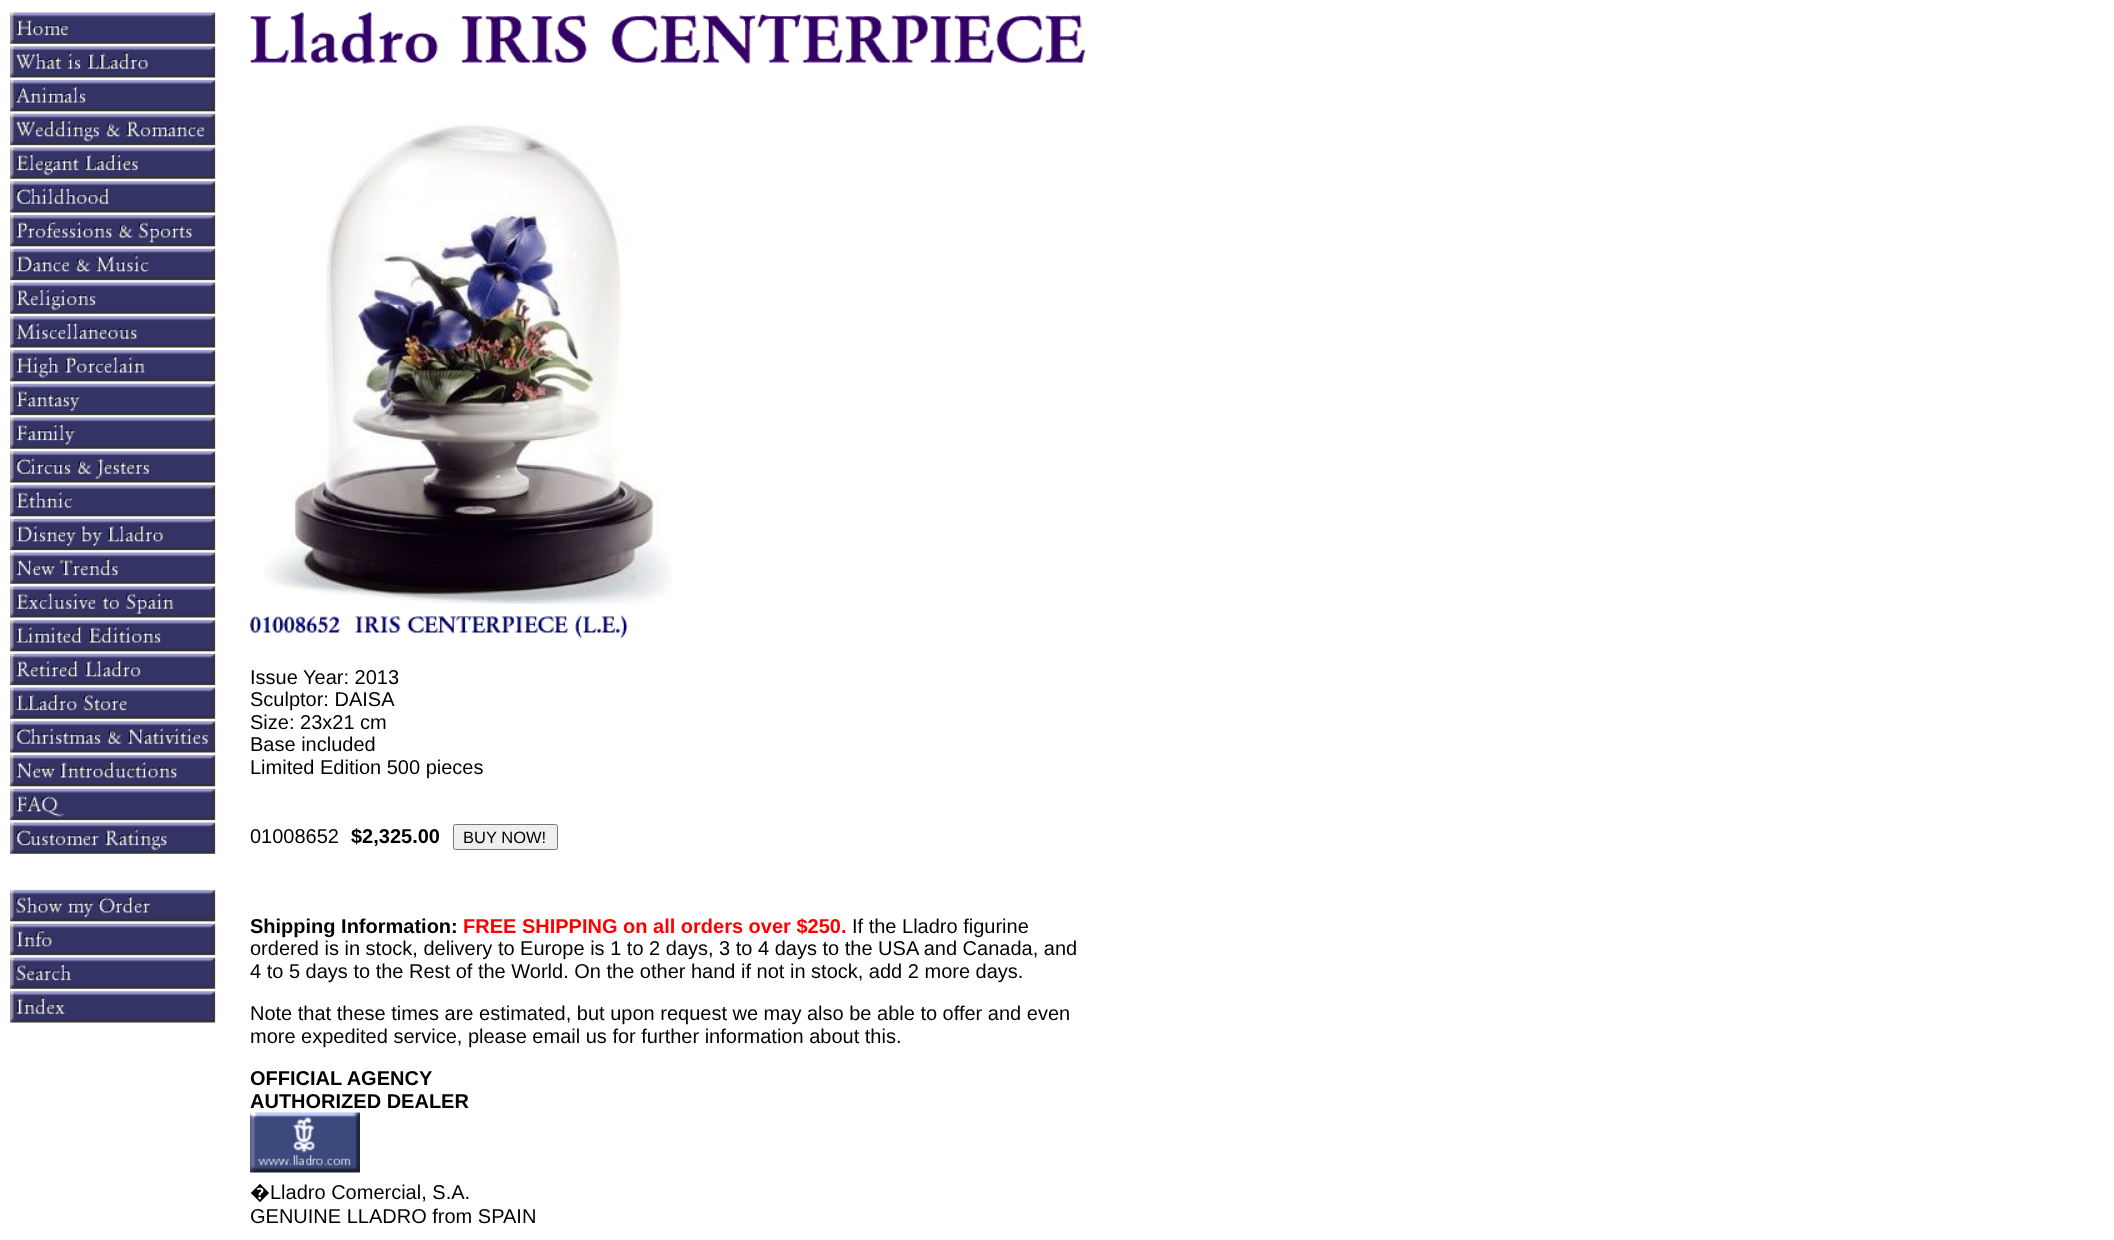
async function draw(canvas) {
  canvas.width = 2114;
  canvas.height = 1240;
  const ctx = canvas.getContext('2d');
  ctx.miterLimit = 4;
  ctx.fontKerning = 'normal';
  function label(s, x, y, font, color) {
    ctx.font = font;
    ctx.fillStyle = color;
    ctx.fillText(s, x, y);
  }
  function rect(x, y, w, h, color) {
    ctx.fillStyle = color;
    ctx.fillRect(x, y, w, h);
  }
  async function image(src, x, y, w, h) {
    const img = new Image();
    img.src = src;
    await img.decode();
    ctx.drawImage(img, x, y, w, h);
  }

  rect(0, 0, 2114, 1240, '#fff');
  await image('assets/img1.png', 10, 12, 206, 1011);
  await image('assets/img2.png', 250, 12, 836, 52);
  await image('assets/img3.png', 264, 124, 408, 480);
  await image('assets/img4.png', 250, 615, 378, 23);
  label('Issue Year: 2013', 250, 684, '20px Liberation Sans', '#000');
  label('Sculptor: DAISA', 250, 706, '20px Liberation Sans', '#000');
  label('Size: 23x21 cm', 250, 729, '20px Liberation Sans', '#000');
  label('Base included', 250, 751, '20px Liberation Sans', '#000');
  label('Limited Edition 500 pieces', 250, 774, '20px Liberation Sans', '#000');
  label('01008652', 250, 843, '20px Liberation Sans', '#000');
  label('$2,325.00', 351, 843, 'bold 20px Liberation Sans', '#000');
  ctx.fillStyle = '#efefef';
  ctx.beginPath();
  ctx.roundRect(453.5, 824.5, 104, 25, 2);
  ctx.fill();
  ctx.strokeStyle = '#767676';
  ctx.stroke();
  label('BUY NOW!', 463, 843, '16.5px Liberation Sans', '#000');
  label('Shipping Information:', 250, 933, 'bold 20px Liberation Sans', '#000');
  label('FREE SHIPPING on all orders over $250.', 463, 933, 'bold 20px Liberation Sans', '#f00');
  label('If the Lladro figurine', 852, 933, '20px Liberation Sans', '#000');
  label('ordered is in stock, delivery to Europe is 1 to 2 days, 3 to 4 days to the USA and Canada, and', 250, 955, '20px Liberation Sans', '#000');
  label('4 to 5 days to the Rest of the World. On the other hand if not in stock, add 2 more days.', 250, 978, '20px Liberation Sans', '#000');
  label('Note that these times are estimated, but upon request we may also be able to offer and even', 250, 1020, '20px Liberation Sans', '#000');
  label('more expedited service, please email us for further information about this.', 250, 1043, '20px Liberation Sans', '#000');
  label('OFFICIAL AGENCY', 250, 1085, 'bold 20px Liberation Sans', '#000');
  label('AUTHORIZED DEALER', 250, 1108, 'bold 20px Liberation Sans', '#000');
  await image('assets/img5.png', 250, 1112, 110, 61);
  label('�', 250, 1199, '20px Noto Sans', '#000');
  label('Lladro Comercial, S.A.', 270, 1199, '20px Liberation Sans', '#000');
  label('GENUINE LLADRO from SPAIN', 250, 1223, '20px Liberation Sans', '#000');
}

draw(document.querySelector('canvas'));
